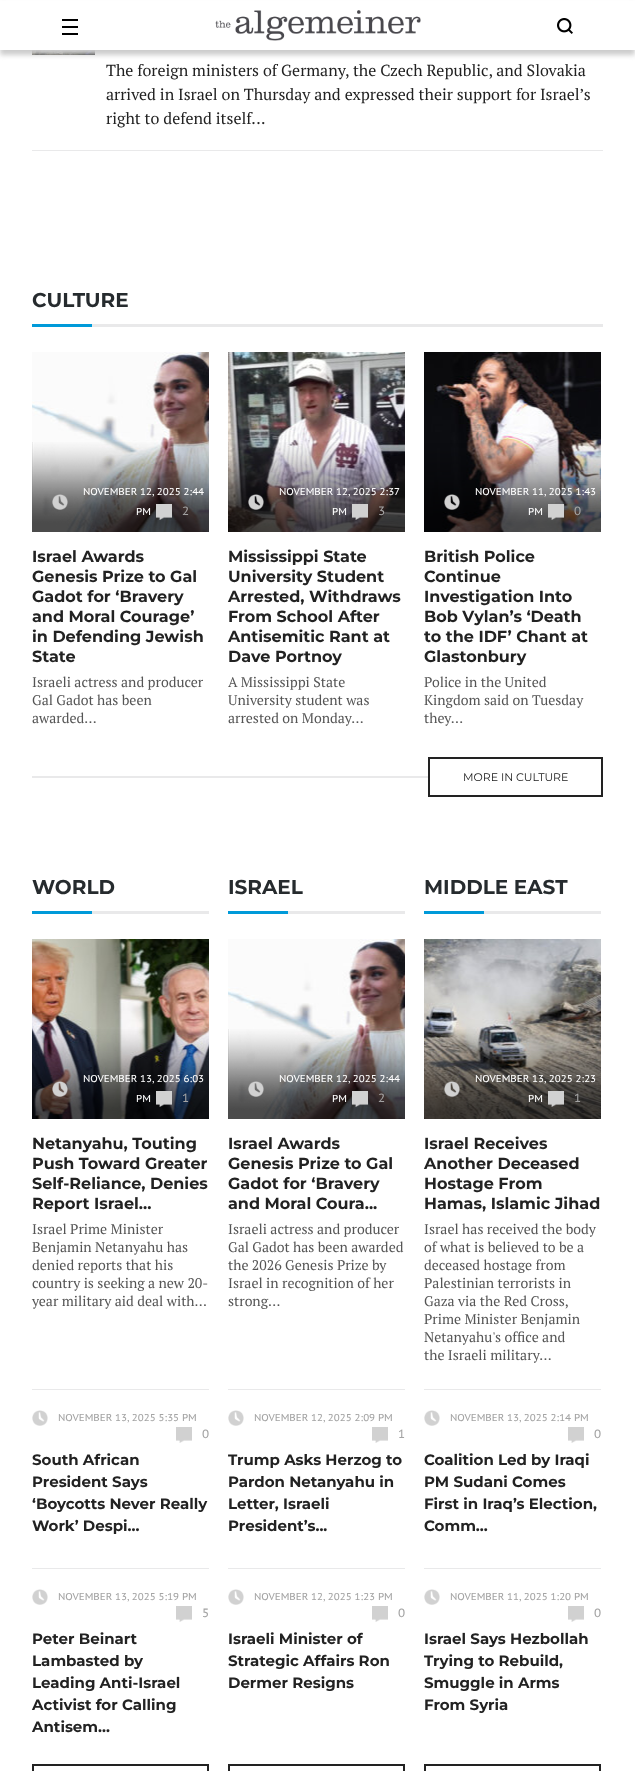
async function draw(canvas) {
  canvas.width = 635;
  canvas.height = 1771;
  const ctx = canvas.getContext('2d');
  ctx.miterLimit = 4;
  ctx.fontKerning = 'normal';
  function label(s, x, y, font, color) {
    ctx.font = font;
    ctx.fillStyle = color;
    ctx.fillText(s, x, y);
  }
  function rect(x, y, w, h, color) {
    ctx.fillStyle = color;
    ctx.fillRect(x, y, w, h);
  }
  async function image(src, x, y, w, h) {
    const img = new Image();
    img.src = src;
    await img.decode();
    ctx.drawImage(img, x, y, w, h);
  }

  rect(0, 0, 635, 1771, '#fff');
  await image('assets/img4.png', 32, 50, 63, 5);
  ctx.fillStyle = '#ccc';
  ctx.filter = 'blur(2.5px)';
  ctx.beginPath();
  ctx.rect(0, 5, 635, 50);
  ctx.fill();
  ctx.filter = 'none';
  rect(0, 1, 635, 49, '#fff');
  await image('assets/img1.png', 62, 19, 16, 16);
  await image('assets/img2.png', 215, 10, 206, 31);
  await image('assets/img3.png', 557, 18, 16, 16);
  rect(32, 150, 571, 1, '#e9e9ea');
  label('The foreign ministers of Germany, the Czech Republic, and Slovakia', 106, 76, '16px PT Serif', '#222');
  label('arrived in Israel on Thursday and expressed their support for Israel’s', 106, 100, '16px PT Serif', '#222');
  label('right to defend itself...', 106, 124, '16px PT Serif', '#222');
  await image('assets/img5.png', 32, 324, 571, 3);
  label('CULTURE', 32, 307, 'bold 20px Montserrat', '#262b2e');
  await image('assets/img6.png', 32, 352, 177, 180);
  await image('assets/img7.png', 32, 442, 177, 90);
  await image('assets/img8.png', 52, 494, 16, 16);
  label('NOVEMBER 12, 2025 2:44', 83, 495, '10px PT Sans Caption', '#fff');
  label('PM', 136, 515, '10px PT Sans Caption', '#fff');
  await image('assets/img9.png', 156, 504, 16, 16);
  label('2', 182, 515, '12px PT Sans Caption', '#a4a4a4');
  label('Israel Awards', 32, 562, 'bold 16px Montserrat', '#222');
  label('Genesis Prize to Gal', 32, 582, 'bold 16px Montserrat', '#222');
  label('Gadot for ‘Bravery', 32, 602, 'bold 16px Montserrat', '#222');
  label('and Moral Courage’', 32, 622, 'bold 16px Montserrat', '#222');
  label('in Defending Jewish', 32, 642, 'bold 16px Montserrat', '#222');
  label('State', 32, 662, 'bold 16px Montserrat', '#222');
  label('Israeli actress and producer', 32, 687, '14px PT Serif', '#555');
  label('Gal Gadot has been', 32, 705, '14px PT Serif', '#555');
  label('awarded...', 32, 723, '14px PT Serif', '#555');
  await image('assets/img10.png', 228, 352, 177, 180);
  await image('assets/img11.png', 228, 442, 177, 90);
  await image('assets/img12.png', 248, 494, 16, 16);
  label('NOVEMBER 12, 2025 2:37', 279, 495, '10px PT Sans Caption', '#fff');
  label('PM', 332, 515, '10px PT Sans Caption', '#fff');
  await image('assets/img13.png', 352, 504, 16, 16);
  label('3', 378, 515, '12px PT Sans Caption', '#a4a4a4');
  label('Mississippi State', 228, 562, 'bold 16px Montserrat', '#222');
  label('University Student', 228, 582, 'bold 16px Montserrat', '#222');
  label('Arrested, Withdraws', 228, 602, 'bold 16px Montserrat', '#222');
  label('From School After', 228, 622, 'bold 16px Montserrat', '#222');
  label('Antisemitic Rant at', 228, 642, 'bold 16px Montserrat', '#222');
  label('Dave Portnoy', 228, 662, 'bold 16px Montserrat', '#222');
  label('A Mississippi State', 228, 687, '14px PT Serif', '#555');
  label('University student was', 228, 705, '14px PT Serif', '#555');
  label('arrested on Monday...', 228, 723, '14px PT Serif', '#555');
  await image('assets/img14.png', 424, 352, 177, 180);
  await image('assets/img15.png', 424, 443, 177, 89);
  await image('assets/img16.png', 444, 494, 16, 16);
  label('NOVEMBER 11, 2025 1:43', 475, 495, '10px PT Sans Caption', '#fff');
  label('PM', 528, 515, '10px PT Sans Caption', '#fff');
  await image('assets/img17.png', 548, 504, 16, 16);
  label('0', 574, 515, '12px PT Sans Caption', '#a4a4a4');
  label('British Police', 424, 562, 'bold 16px Montserrat', '#222');
  label('Continue', 424, 582, 'bold 16px Montserrat', '#222');
  label('Investigation Into', 424, 602, 'bold 16px Montserrat', '#222');
  label('Bob Vylan’s ‘Death', 424, 622, 'bold 16px Montserrat', '#222');
  label('to the IDF’ Chant at', 424, 642, 'bold 16px Montserrat', '#222');
  label('Glastonbury', 424, 662, 'bold 16px Montserrat', '#222');
  label('Police in the United', 424, 687, '14px PT Serif', '#555');
  label('Kingdom said on Tuesday', 424, 705, '14px PT Serif', '#555');
  label('they...', 424, 723, '14px PT Serif', '#555');
  rect(32, 776, 400, 2, '#e9e9ea');
  rect(430, 776, 2, 2, '#fff');
  ctx.strokeStyle = '#222';
  ctx.lineWidth = 2;
  ctx.strokeRect(429, 758, 173, 38);
  label('MORE IN CULTURE', 463, 781, '11px Montserrat', '#222');
  await image('assets/img18.png', 32, 911, 177, 3);
  label('WORLD', 32, 894, 'bold 20px Montserrat', '#262b2e');
  rect(32, 1389, 177, 1, '#e9e9ea');
  await image('assets/img19.png', 32, 939, 177, 180);
  await image('assets/img20.png', 32, 1029, 177, 90);
  await image('assets/img21.png', 52, 1081, 16, 16);
  label('NOVEMBER 13, 2025 6:03', 83, 1082, '10px PT Sans Caption', '#fff');
  label('PM', 136, 1102, '10px PT Sans Caption', '#fff');
  await image('assets/img22.png', 156, 1091, 16, 16);
  label('1', 182, 1102, '12px PT Sans Caption', '#a4a4a4');
  label('Netanyahu, Touting', 32, 1149, 'bold 16px Montserrat', '#222');
  label('Push Toward Greater', 32, 1169, 'bold 16px Montserrat', '#222');
  label('Self-Reliance, Denies', 32, 1189, 'bold 16px Montserrat', '#222');
  label('Report Israel...', 32, 1209, 'bold 16px Montserrat', '#222');
  label('Israel Prime Minister', 32, 1234, '14px PT Serif', '#555');
  label('Benjamin Netanyahu has', 32, 1252, '14px PT Serif', '#555');
  label('denied reports that his', 32, 1270, '14px PT Serif', '#555');
  label('country is seeking a new 20-', 32, 1288, '14px PT Serif', '#555');
  label('year military aid deal with...', 32, 1306, '14px PT Serif', '#555');
  rect(32, 1568, 177, 1, '#e9e9ea');
  await image('assets/img23.png', 32, 1410, 16, 16);
  label('NOVEMBER 13, 2025 5:35 PM', 58, 1421, '10px PT Sans Caption', '#a4a4a4');
  await image('assets/img24.png', 176, 1427, 16, 16);
  label('0', 202, 1438, '12px PT Sans Caption', '#a4a4a4');
  label('South African', 32, 1465, 'bold 15px Montserrat', '#222');
  label('President Says', 32, 1487, 'bold 15px Montserrat', '#222');
  label('‘Boycotts Never Really', 32, 1509, 'bold 15px Montserrat', '#222');
  label('Work’ Despi...', 32, 1531, 'bold 15px Montserrat', '#222');
  await image('assets/img23.png', 32, 1589, 16, 16);
  label('NOVEMBER 13, 2025 5:19 PM', 58, 1600, '10px PT Sans Caption', '#a4a4a4');
  await image('assets/img24.png', 176, 1606, 16, 16);
  label('5', 202, 1617, '12px PT Sans Caption', '#a4a4a4');
  label('Peter Beinart', 32, 1644, 'bold 15px Montserrat', '#222');
  label('Lambasted by', 32, 1666, 'bold 15px Montserrat', '#222');
  label('Leading Anti-Israel', 32, 1688, 'bold 15px Montserrat', '#222');
  label('Activist for Calling', 32, 1710, 'bold 15px Montserrat', '#222');
  label('Antisem...', 32, 1732, 'bold 15px Montserrat', '#222');
  ctx.strokeRect(33, 1765, 175, 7);
  await image('assets/img18.png', 228, 911, 177, 3);
  label('ISRAEL', 228, 894, 'bold 20px Montserrat', '#262b2e');
  rect(228, 1389, 177, 1, '#e9e9ea');
  await image('assets/img25.png', 228, 939, 177, 180);
  await image('assets/img26.png', 228, 1029, 177, 90);
  await image('assets/img8.png', 248, 1081, 16, 16);
  label('NOVEMBER 12, 2025 2:44', 279, 1082, '10px PT Sans Caption', '#fff');
  label('PM', 332, 1102, '10px PT Sans Caption', '#fff');
  await image('assets/img9.png', 352, 1091, 16, 16);
  label('2', 378, 1102, '12px PT Sans Caption', '#a4a4a4');
  label('Israel Awards', 228, 1149, 'bold 16px Montserrat', '#222');
  label('Genesis Prize to Gal', 228, 1169, 'bold 16px Montserrat', '#222');
  label('Gadot for ‘Bravery', 228, 1189, 'bold 16px Montserrat', '#222');
  label('and Moral Coura...', 228, 1209, 'bold 16px Montserrat', '#222');
  label('Israeli actress and producer', 228, 1234, '14px PT Serif', '#555');
  label('Gal Gadot has been awarded', 228, 1252, '14px PT Serif', '#555');
  label('the 2026 Genesis Prize by', 228, 1270, '14px PT Serif', '#555');
  label('Israel in recognition of her', 228, 1288, '14px PT Serif', '#555');
  label('strong...', 228, 1306, '14px PT Serif', '#555');
  rect(228, 1568, 177, 1, '#e9e9ea');
  await image('assets/img23.png', 228, 1410, 16, 16);
  label('NOVEMBER 12, 2025 2:09 PM', 254, 1421, '10px PT Sans Caption', '#a4a4a4');
  await image('assets/img24.png', 372, 1427, 16, 16);
  label('1', 398, 1438, '12px PT Sans Caption', '#a4a4a4');
  label('Trump Asks Herzog to', 228, 1465, 'bold 15px Montserrat', '#222');
  label('Pardon Netanyahu in', 228, 1487, 'bold 15px Montserrat', '#222');
  label('Letter, Israeli', 228, 1509, 'bold 15px Montserrat', '#222');
  label('President’s...', 228, 1531, 'bold 15px Montserrat', '#222');
  await image('assets/img23.png', 228, 1589, 16, 16);
  label('NOVEMBER 12, 2025 1:23 PM', 254, 1600, '10px PT Sans Caption', '#a4a4a4');
  await image('assets/img24.png', 372, 1606, 16, 16);
  label('0', 398, 1617, '12px PT Sans Caption', '#a4a4a4');
  label('Israeli Minister of', 228, 1644, 'bold 15px Montserrat', '#222');
  label('Strategic Affairs Ron', 228, 1666, 'bold 15px Montserrat', '#222');
  label('Dermer Resigns', 228, 1688, 'bold 15px Montserrat', '#222');
  ctx.strokeRect(229, 1765, 175, 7);
  await image('assets/img18.png', 424, 911, 177, 3);
  label('MIDDLE EAST', 424, 894, 'bold 20px Montserrat', '#262b2e');
  rect(424, 1389, 177, 1, '#e9e9ea');
  await image('assets/img27.png', 424, 939, 177, 180);
  await image('assets/img28.png', 424, 1029, 177, 90);
  await image('assets/img29.png', 444, 1081, 16, 16);
  label('NOVEMBER 13, 2025 2:23', 475, 1082, '10px PT Sans Caption', '#fff');
  label('PM', 528, 1102, '10px PT Sans Caption', '#fff');
  await image('assets/img30.png', 548, 1091, 16, 16);
  label('1', 574, 1102, '12px PT Sans Caption', '#a4a4a4');
  label('Israel Receives', 424, 1149, 'bold 16px Montserrat', '#222');
  label('Another Deceased', 424, 1169, 'bold 16px Montserrat', '#222');
  label('Hostage From', 424, 1189, 'bold 16px Montserrat', '#222');
  label('Hamas, Islamic Jihad', 424, 1209, 'bold 16px Montserrat', '#222');
  label('Israel has received the body', 424, 1234, '14px PT Serif', '#555');
  label('of what is believed to be a', 424, 1252, '14px PT Serif', '#555');
  label('deceased hostage from', 424, 1270, '14px PT Serif', '#555');
  label('Palestinian terrorists in', 424, 1288, '14px PT Serif', '#555');
  label('Gaza via the Red Cross,', 424, 1306, '14px PT Serif', '#555');
  label('Prime Minister Benjamin', 424, 1324, '14px PT Serif', '#555');
  label('Netanyahu\'s office and', 424, 1342, '14px PT Serif', '#555');
  label('the Israeli military...', 424, 1360, '14px PT Serif', '#555');
  rect(424, 1568, 177, 1, '#e9e9ea');
  await image('assets/img23.png', 424, 1410, 16, 16);
  label('NOVEMBER 13, 2025 2:14 PM', 450, 1421, '10px PT Sans Caption', '#a4a4a4');
  await image('assets/img24.png', 568, 1427, 16, 16);
  label('0', 594, 1438, '12px PT Sans Caption', '#a4a4a4');
  label('Coalition Led by Iraqi', 424, 1465, 'bold 15px Montserrat', '#222');
  label('PM Sudani Comes', 424, 1487, 'bold 15px Montserrat', '#222');
  label('First in Iraq’s Election,', 424, 1509, 'bold 15px Montserrat', '#222');
  label('Comm...', 424, 1531, 'bold 15px Montserrat', '#222');
  await image('assets/img23.png', 424, 1589, 16, 16);
  label('NOVEMBER 11, 2025 1:20 PM', 450, 1600, '10px PT Sans Caption', '#a4a4a4');
  await image('assets/img24.png', 568, 1606, 16, 16);
  label('0', 594, 1617, '12px PT Sans Caption', '#a4a4a4');
  label('Israel Says Hezbollah', 424, 1644, 'bold 15px Montserrat', '#222');
  label('Trying to Rebuild,', 424, 1666, 'bold 15px Montserrat', '#222');
  label('Smuggle in Arms', 424, 1688, 'bold 15px Montserrat', '#222');
  label('From Syria', 424, 1710, 'bold 15px Montserrat', '#222');
  ctx.strokeRect(425, 1765, 175, 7);
}

draw(document.querySelector('canvas'));
